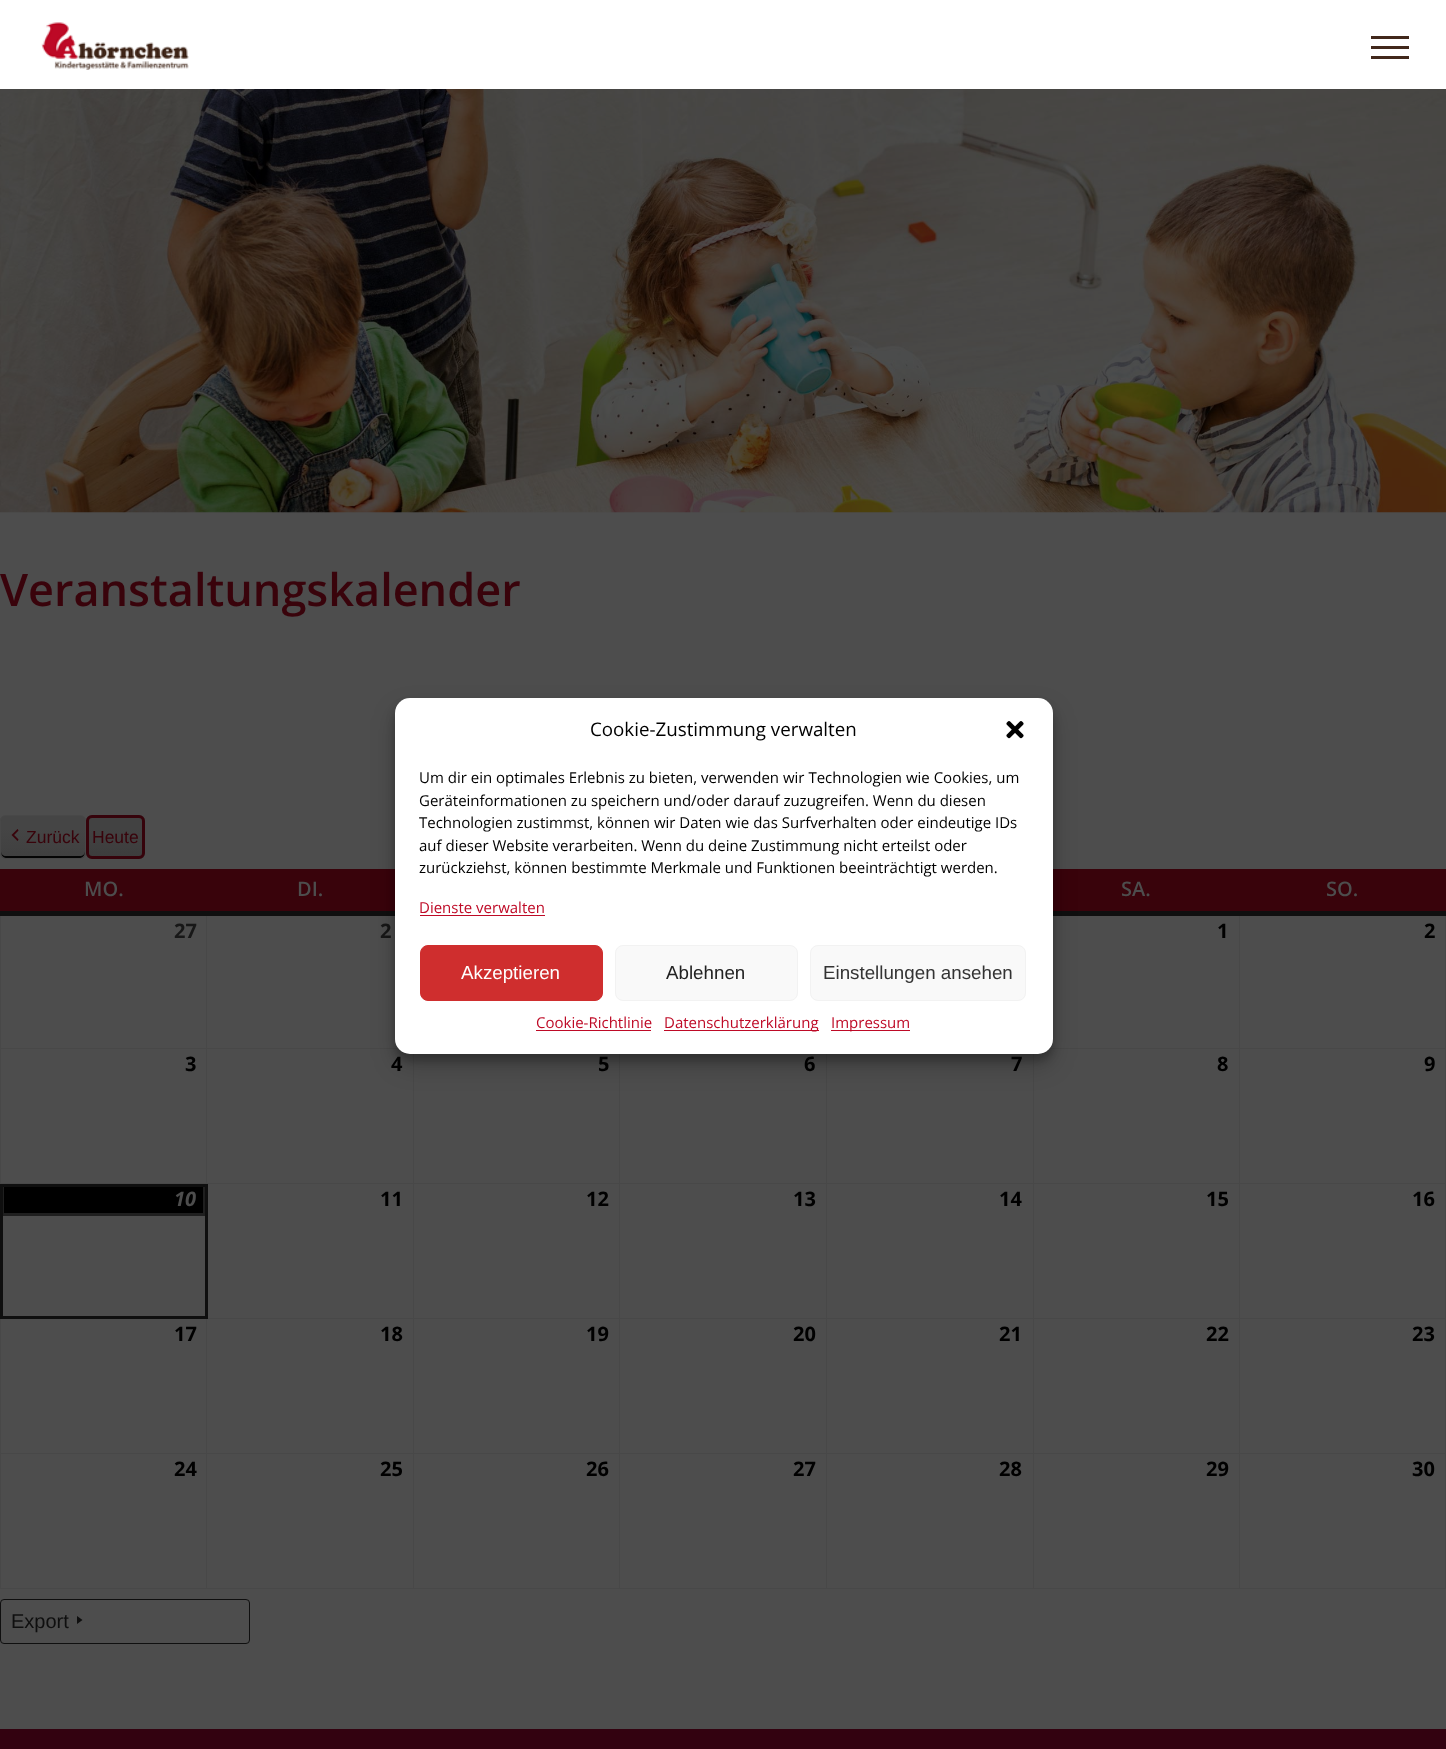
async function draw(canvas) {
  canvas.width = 1446;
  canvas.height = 1749;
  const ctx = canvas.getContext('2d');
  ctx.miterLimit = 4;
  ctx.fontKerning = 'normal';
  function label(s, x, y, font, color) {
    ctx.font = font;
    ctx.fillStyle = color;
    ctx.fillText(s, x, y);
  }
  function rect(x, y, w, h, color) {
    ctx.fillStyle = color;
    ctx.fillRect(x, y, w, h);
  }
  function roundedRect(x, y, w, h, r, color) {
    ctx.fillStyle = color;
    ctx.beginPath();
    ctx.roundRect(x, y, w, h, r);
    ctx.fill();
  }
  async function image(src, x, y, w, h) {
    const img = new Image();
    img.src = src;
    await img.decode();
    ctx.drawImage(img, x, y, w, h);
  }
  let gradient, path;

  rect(0, 0, 1446, 1749, '#4d4d4d');
  rect(0, 0, 1446, 89, '#fff');
  await image('assets/img1.png', 41, 22, 148, 48);
  rect(1371, 36, 38, 3, '#41281b');
  rect(1371, 46, 38, 3, '#41281b');
  rect(1371, 56, 38, 3, '#41281b');
  await image('assets/img2.png', 0, 89, 1446, 424);
  label('Veranstaltungskalender', 0, 606, '600 45px Open Sans', '#39030b');
  ctx.save();
  ctx.beginPath();
  ctx.roundRect(0, 815, 86, 44, 6);
  ctx.clip();
  gradient = ctx.createLinearGradient(43, 858, 43, 816);
  gradient.addColorStop(0, '#404040');
  gradient.addColorStop(0.7, '#454545');
  ctx.fillStyle = gradient;
  ctx.fillRect(0, 816, 86, 42);
  ctx.restore();
  ctx.fillStyle = '#050505';
  path = new Path2D('M1 851C1 861 10 858 18 858H68C76 858 85 861 85 851C85 854 83 856 80 856H6C3 856 1 854 1 851Z');
  ctx.fill(path);
  ctx.beginPath();
  ctx.roundRect(0.5, 815.5, 85, 43, 5.5);
  ctx.strokeStyle = '#484848';
  ctx.stroke();
  await image('assets/img3.png', 11, 829, 8, 12);
  label('Zurück', 26, 843, '17.5px Liberation Sans', '#39030b');
  ctx.save();
  ctx.beginPath();
  ctx.roundRect(86, 815, 59, 44, 6);
  ctx.clip();
  gradient = ctx.createLinearGradient(116, 858, 116, 816);
  gradient.addColorStop(0, '#3d3d3d');
  gradient.addColorStop(0.7, '#424242');
  ctx.fillStyle = gradient;
  ctx.fillRect(86, 816, 59, 42);
  ctx.restore();
  ctx.beginPath();
  ctx.roundRect(86.5, 815.5, 58, 43, 5.5);
  ctx.strokeStyle = '#444';
  ctx.stroke();
  ctx.beginPath();
  ctx.roundRect(87.5, 816.5, 56, 41, 4.5);
  ctx.strokeStyle = '#36030b';
  ctx.lineWidth = 3;
  ctx.stroke();
  label('Heute', 92, 843, '17.5px Liberation Sans', '#39030b');
  rect(206, 1048, 193, 1, '#484848');
  rect(1239, 1183, 207, 1, '#484848');
  rect(1239, 1318, 207, 1, '#484848');
  rect(1239, 1453, 207, 1, '#484848');
  rect(1445, 1453, 1, 136, '#484848');
  rect(1239, 1588, 207, 1, '#484848');
  rect(1239, 1453, 1, 136, '#484848');
  rect(1033, 1453, 207, 1, '#484848');
  rect(1239, 1318, 1, 136, '#484848');
  rect(1033, 1318, 207, 1, '#484848');
  rect(1239, 1183, 1, 136, '#484848');
  rect(1033, 1183, 207, 1, '#484848');
  rect(1033, 1588, 207, 1, '#484848');
  rect(1033, 1453, 1, 136, '#484848');
  rect(826, 1453, 208, 1, '#484848');
  rect(1033, 1318, 1, 136, '#484848');
  rect(826, 1318, 208, 1, '#484848');
  rect(1033, 1183, 1, 136, '#484848');
  rect(826, 1183, 208, 1, '#484848');
  rect(826, 1588, 208, 1, '#484848');
  rect(826, 1453, 1, 136, '#484848');
  rect(619, 1453, 209, 1, '#484848');
  rect(826, 1318, 1, 136, '#484848');
  rect(619, 1318, 209, 1, '#484848');
  rect(826, 1183, 1, 136, '#484848');
  rect(619, 1183, 209, 1, '#484848');
  rect(619, 1588, 209, 1, '#484848');
  rect(619, 1453, 1, 136, '#484848');
  rect(413, 1453, 207, 1, '#484848');
  rect(619, 1318, 1, 136, '#484848');
  rect(413, 1318, 207, 1, '#484848');
  rect(619, 1183, 1, 136, '#484848');
  rect(413, 1183, 207, 1, '#484848');
  rect(413, 1588, 207, 1, '#484848');
  rect(413, 1453, 1, 136, '#484848');
  rect(206, 1453, 208, 1, '#484848');
  rect(413, 1318, 1, 136, '#484848');
  rect(206, 1318, 208, 1, '#484848');
  rect(413, 1183, 1, 136, '#484848');
  rect(0, 1183, 414, 1, '#484848');
  rect(206, 1048, 1, 136, '#484848');
  rect(0, 1048, 208, 1, '#484848');
  rect(206, 913, 1, 136, '#484848');
  rect(1239, 1048, 207, 1, '#484848');
  rect(1239, 1048, 1, 136, '#484848');
  rect(1049, 1048, 191, 1, '#484848');
  rect(1239, 913, 1, 136, '#484848');
  rect(0, 913, 1, 271, '#484848');
  rect(1445, 1318, 1, 136, '#484848');
  rect(1445, 1183, 1, 136, '#484848');
  rect(1445, 913, 1, 271, '#484848');
  rect(0, 911, 1446, 5, '#0f0f0f');
  rect(0, 869, 395, 42, '#39030b');
  label('MO.', 84, 896, '600 20px Open Sans', '#4d4d4d');
  label('DI.', 297, 896, '600 20px Open Sans', '#4d4d4d');
  rect(1053, 869, 393, 42, '#39030b');
  label('SA.', 1121, 896, '600 20px Open Sans', '#4d4d4d');
  label('SO.', 1326, 896, '600 20px Open Sans', '#4d4d4d');
  label('27', 174, 938, 'bold 20px Open Sans', '#171717');
  label('2', 380, 938, 'bold 20px Open Sans', '#171717');
  label('1', 1217, 938, 'bold 20px Open Sans', '#000');
  label('2', 1424, 938, 'bold 20px Open Sans', '#000');
  label('3', 185, 1071, 'bold 20px Open Sans', '#000');
  label('4', 391, 1071, 'bold 20px Open Sans', '#000');
  rect(413, 1048, 1, 136, '#484848');
  label('5', 598, 1071, 'bold 20px Open Sans', '#000');
  rect(619, 1048, 1, 136, '#484848');
  label('6', 804, 1071, 'bold 20px Open Sans', '#000');
  rect(826, 1048, 1, 136, '#484848');
  label('7', 1011, 1071, 'bold 20px Open Sans', '#000');
  rect(1033, 1048, 1, 136, '#484848');
  label('8', 1217, 1071, 'bold 20px Open Sans', '#000');
  label('9', 1424, 1071, 'bold 20px Open Sans', '#000');
  ctx.beginPath();
  ctx.rect(2.5, 1185.5, 202, 29);
  ctx.fill();
  ctx.strokeStyle = '#1f1f1f';
  ctx.stroke();
  rect(206, 1588, 208, 1, '#484848');
  rect(206, 1453, 1, 136, '#484848');
  rect(0, 1453, 208, 1, '#484848');
  rect(206, 1318, 1, 136, '#484848');
  rect(0, 1588, 208, 1, '#484848');
  rect(0, 1318, 1, 271, '#484848');
  ctx.strokeStyle = '#0f0f0f';
  ctx.strokeRect(1.5, 1185.5, 205, 132);
  label('10', 174, 1206, 'italic bold 20px Open Sans', '#4d4d4d');
  label('11', 380, 1206, 'bold 20px Open Sans', '#000');
  label('12', 586, 1206, 'bold 20px Open Sans', '#000');
  label('13', 793, 1206, 'bold 20px Open Sans', '#000');
  label('14', 999, 1206, 'bold 20px Open Sans', '#000');
  label('15', 1206, 1206, 'bold 20px Open Sans', '#000');
  label('16', 1412, 1206, 'bold 20px Open Sans', '#000');
  label('17', 174, 1341, 'bold 20px Open Sans', '#000');
  label('18', 380, 1341, 'bold 20px Open Sans', '#000');
  label('19', 586, 1341, 'bold 20px Open Sans', '#000');
  label('20', 793, 1341, 'bold 20px Open Sans', '#000');
  label('21', 999, 1341, 'bold 20px Open Sans', '#000');
  label('22', 1206, 1341, 'bold 20px Open Sans', '#000');
  label('23', 1412, 1341, 'bold 20px Open Sans', '#000');
  label('24', 174, 1476, 'bold 20px Open Sans', '#000');
  label('25', 380, 1476, 'bold 20px Open Sans', '#000');
  label('26', 586, 1476, 'bold 20px Open Sans', '#000');
  label('27', 793, 1476, 'bold 20px Open Sans', '#000');
  label('28', 999, 1476, 'bold 20px Open Sans', '#000');
  label('29', 1206, 1476, 'bold 20px Open Sans', '#000');
  label('30', 1412, 1476, 'bold 20px Open Sans', '#000');
  ctx.beginPath();
  ctx.roundRect(0.5, 1599.5, 249, 44, 3.5);
  ctx.lineWidth = 1;
  ctx.stroke();
  label('Export', 11, 1628, '20px Liberation Sans', '#0f0f0f');
  path = new Path2D('M77 1616L82.5 1620L77 1624Z');
  ctx.fill(path);
  rect(0, 1729, 1446, 20, '#330210');
  ctx.fillStyle = '#0000003b';
  ctx.filter = 'blur(4px)';
  ctx.beginPath();
  ctx.roundRect(395, 705, 658, 356, 15);
  ctx.fill();
  ctx.filter = 'none';
  ctx.fillStyle = '#00000030';
  ctx.filter = 'blur(12.5px)';
  ctx.beginPath();
  ctx.roundRect(395, 710, 658, 356, 15);
  ctx.fill();
  ctx.filter = 'none';
  roundedRect(395, 698, 658, 356, 15, '#fff');
  label('Cookie-Zustimmung verwalten', 590, 736, '18.75px Open Sans', '#000');
  await image('assets/img4.png', 1006, 721, 18, 18);
  label('Um dir ein optimales Erlebnis zu bieten, verwenden wir Technologien wie Cookies, um', 419, 783, '15px Open Sans', '#000');
  label('Geräteinformationen zu speichern und/oder darauf zuzugreifen. Wenn du diesen', 419, 806, '15px Open Sans', '#000');
  label('Technologien zustimmst, können wir Daten wie das Surfverhalten oder eindeutige IDs', 419, 828, '15px Open Sans', '#000');
  label('auf dieser Website verarbeiten. Wenn du deine Zustimmung nicht erteilst oder', 419, 851, '15px Open Sans', '#000');
  label('zurückziehst, können bestimmte Merkmale und Funktionen beeinträchtigt werden.', 419, 873, '15px Open Sans', '#000');
  label('Dienste verwalten', 419, 913, '15px Open Sans', '#be0a26');
  rect(420, 915, 125, 1, '#be0a26');
  ctx.fillStyle = '#cf2e2e';
  ctx.beginPath();
  ctx.roundRect(420.5, 945.5, 182, 55, 7.5);
  ctx.fill();
  ctx.strokeStyle = '#cf2e2e';
  ctx.stroke();
  label('Akzeptieren', 461, 979, '18.75px Liberation Sans', '#fff');
  ctx.fillStyle = '#f9f9f9';
  ctx.beginPath();
  ctx.roundRect(615.5, 945.5, 182, 55, 7.5);
  ctx.fill();
  ctx.strokeStyle = '#f2f2f2';
  ctx.stroke();
  label('Ablehnen', 666, 979, '18.75px Liberation Sans', '#222');
  ctx.fillStyle = '#f9f9f9';
  ctx.beginPath();
  ctx.roundRect(810.5, 945.5, 215, 55, 7.5);
  ctx.fill();
  ctx.stroke();
  label('Einstellungen ansehen', 823, 979, '18.75px Liberation Sans', '#333');
  label('Cookie-Richtlinie', 536, 1028, '15px Open Sans', '#be0a26');
  rect(536, 1030, 115, 1, '#be0a26');
  rect(664, 1030, 155, 1, '#be0a26');
  label('Datenschutzerklärung', 664, 1028, '15px Open Sans', '#be0a26');
  rect(831, 1030, 79, 1, '#be0a26');
  label('Impressum', 831, 1028, '15px Open Sans', '#be0a26');
}

draw(document.querySelector('canvas'));
